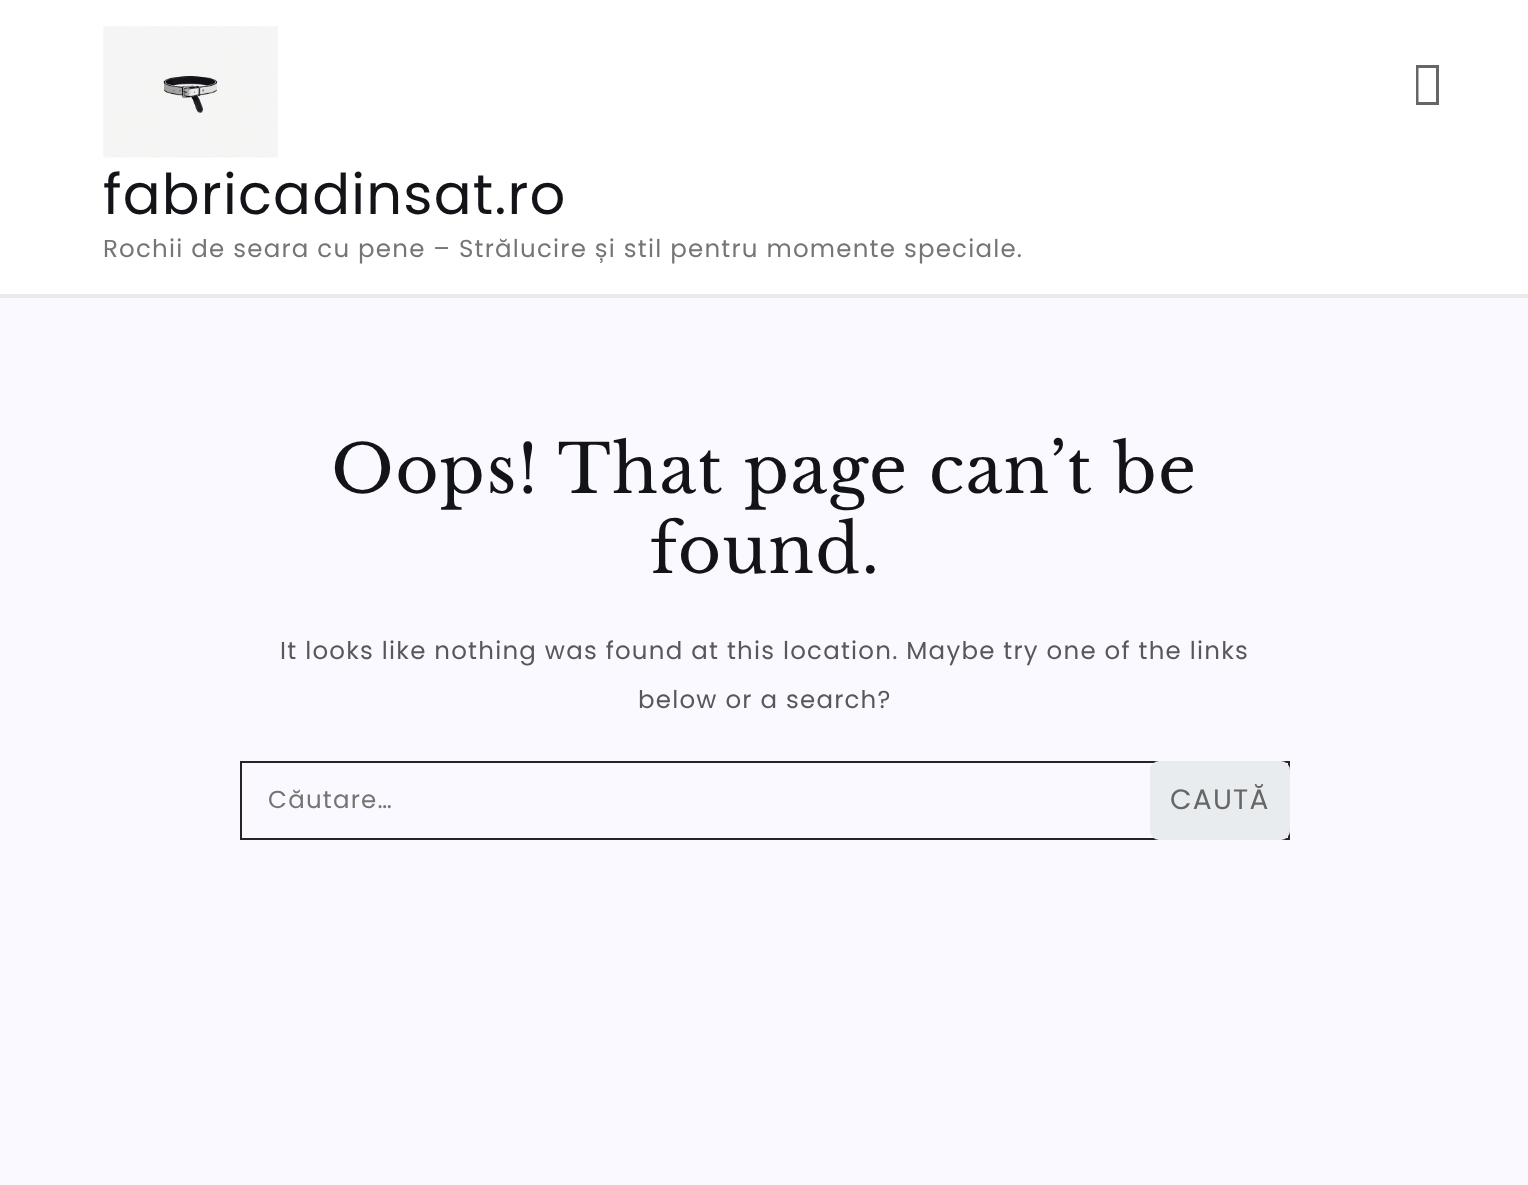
async function draw(canvas) {
  canvas.width = 1528;
  canvas.height = 1185;
  const ctx = canvas.getContext('2d');
  ctx.miterLimit = 4;
  ctx.fontKerning = 'normal';
  function label(s, x, y, font, color) {
    ctx.font = font;
    ctx.fillStyle = color;
    ctx.fillText(s, x, y);
  }
  function rect(x, y, w, h, color) {
    ctx.fillStyle = color;
    ctx.fillRect(x, y, w, h);
  }
  function roundedRect(x, y, w, h, r, color) {
    ctx.fillStyle = color;
    ctx.beginPath();
    ctx.roundRect(x, y, w, h, r);
    ctx.fill();
  }
  async function image(src, x, y, w, h) {
    const img = new Image();
    img.src = src;
    await img.decode();
    ctx.drawImage(img, x, y, w, h);
  }
  let path;

  rect(0, 0, 1528, 1185, '#f9f9ff');
  rect(0, 0, 1528, 294, '#fff');
  rect(0, 294, 1528, 4, '#e9e9e9');
  ctx.fillStyle = '#666';
  path = new Path2D('M1416 105V65H1439V105ZM1418.5 102H1436V68H1418.5Z');
  ctx.fill(path);
  await image('assets/img1.png', 103, 26, 175, 132);
  ctx.letterSpacing = '1.22px';
  label('fabricadinsat.ro', 103, 214, '56px Poppins', '#121418');
  label('Rochii de seara cu pene – Strălucire și stil pentru momente speciale.', 103, 257, '24.5px Poppins', '#757575');
  label('Oops! That page can’t be', 331, 493, '66.5px Libre Baskerville', '#121418');
  label('found.', 650, 573, '66.5px Libre Baskerville', '#121418');
  label('It looks like nothing was found at this location. Maybe try one of the links', 280, 659, '24.5px Poppins', '#565859');
  label('below or a search?', 638, 708, '24.5px Poppins', '#565859');
  ctx.strokeStyle = '#262525';
  ctx.lineWidth = 2;
  ctx.strokeRect(241, 762, 1048, 77);
  label('Căutare…', 268, 808, '24.5px Poppins', '#757575');
  roundedRect(1150, 761, 140, 79, 9, '#e9ecef');
  label('CAUTĂ', 1170, 809, '28px Poppins', '#666');
}

draw(document.querySelector('canvas'));
